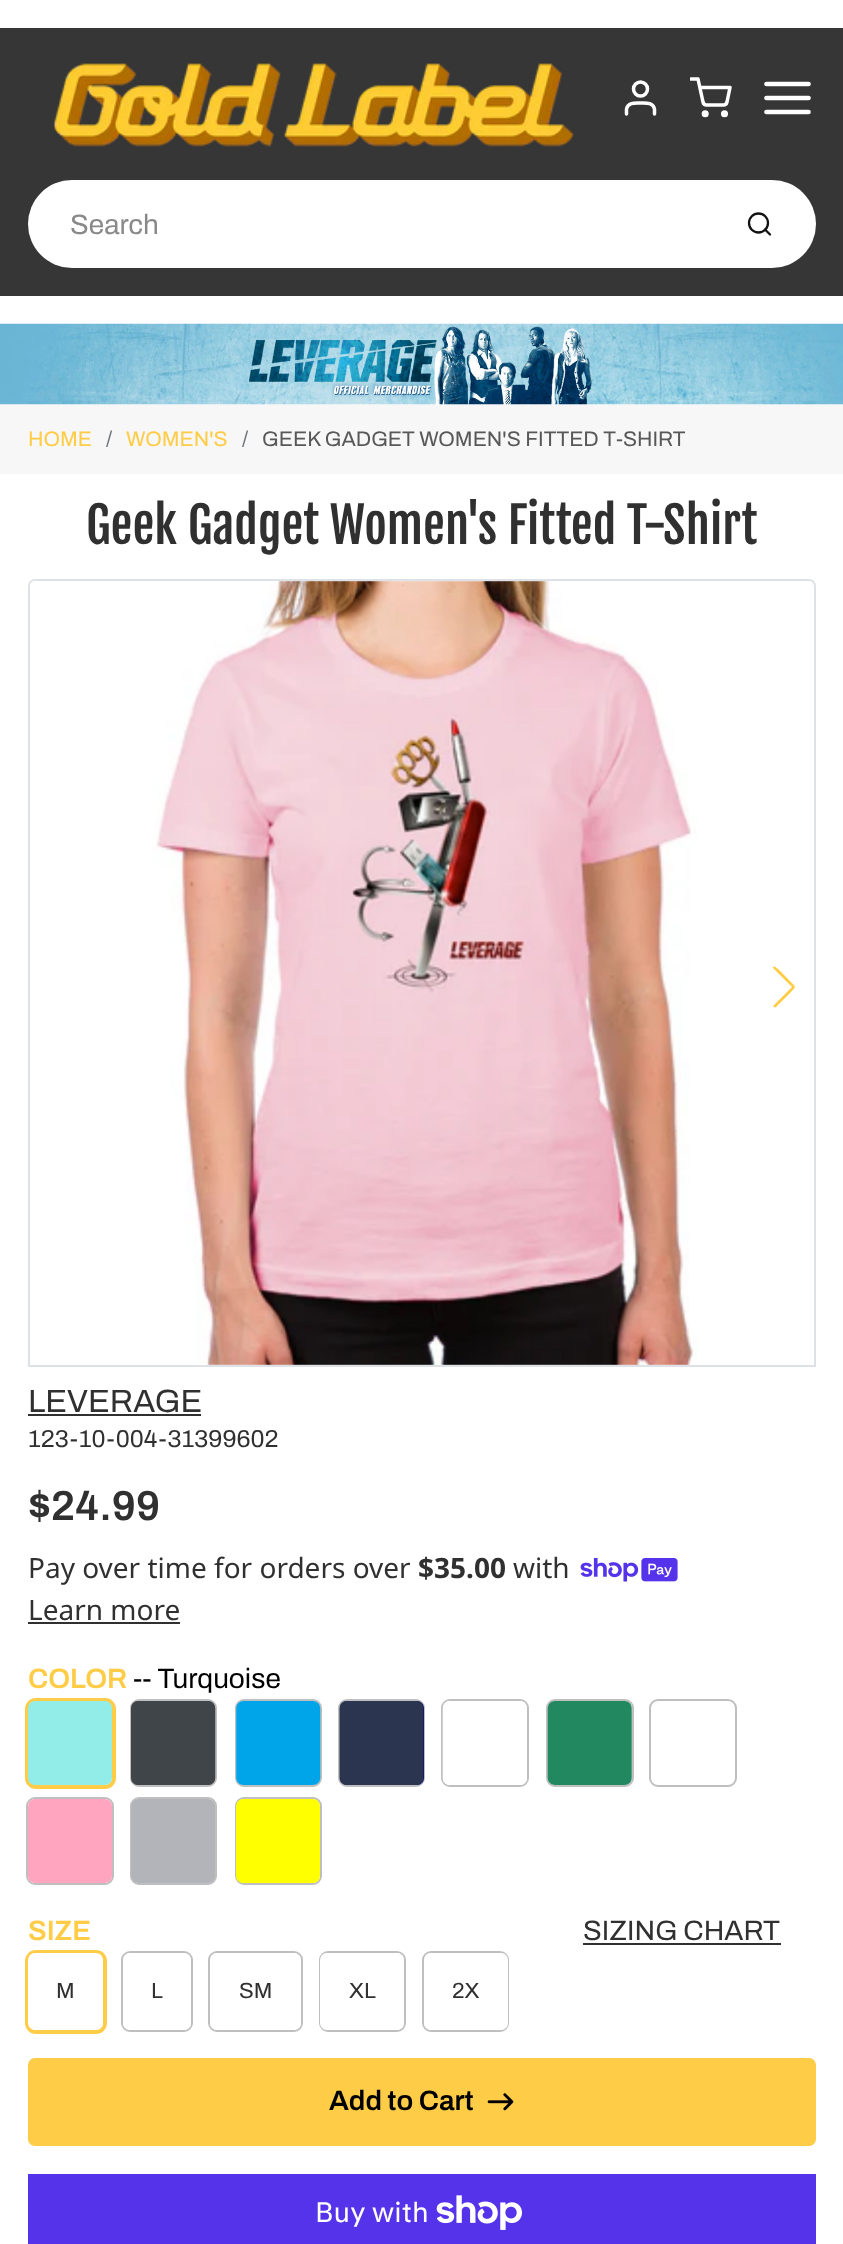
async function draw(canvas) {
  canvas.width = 843;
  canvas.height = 2244;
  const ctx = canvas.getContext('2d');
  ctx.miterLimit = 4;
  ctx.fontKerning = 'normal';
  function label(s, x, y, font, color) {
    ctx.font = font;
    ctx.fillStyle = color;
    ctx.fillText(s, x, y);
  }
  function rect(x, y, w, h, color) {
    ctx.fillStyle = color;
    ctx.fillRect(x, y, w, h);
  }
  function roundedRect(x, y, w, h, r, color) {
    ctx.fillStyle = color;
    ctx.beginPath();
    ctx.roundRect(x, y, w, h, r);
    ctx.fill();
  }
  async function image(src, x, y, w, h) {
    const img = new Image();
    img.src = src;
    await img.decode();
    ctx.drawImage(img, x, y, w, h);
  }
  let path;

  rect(0, 0, 843, 2244, '#fff');
  rect(0, 28, 843, 268, '#363636');
  await image('assets/img1.png', 53, 63, 522, 84);
  path = new Path2D('M654.5 114V109C653 102 645.5 103 640.5 103C635.5 103 628 102 626.5 109V114');
  ctx.strokeStyle = '#fff';
  ctx.lineWidth = 3.5;
  ctx.lineCap = 'round';
  ctx.lineJoin = 'round';
  ctx.stroke(path);
  ctx.beginPath();
  ctx.arc(640.5, 89, 7, 0, 2 * Math.PI);
  ctx.stroke();
  ctx.beginPath();
  ctx.arc(705.2, 113.8, 1.8, 0, 2 * Math.PI);
  ctx.stroke();
  ctx.beginPath();
  ctx.arc(724.5, 113.8, 1.8, 0, 2 * Math.PI);
  ctx.stroke();
  ctx.save();
  ctx.beginPath();
  ctx.rect(690, 77, 42, 42);
  ctx.clip();
  path = new Path2D('M691 79H698L703 102C703.5 104 704.5 105 706.5 105H723.5C725 105 726.5 104 727 102L730 87.5H700');
  ctx.stroke(path);
  ctx.restore();
  path = new Path2D('M766.5 98H808.5M766.5 84H808.5M766.5 112H808.5');
  ctx.lineWidth = 4.7;
  ctx.stroke(path);
  roundedRect(28, 180, 788, 88, 44, '#fff');
  label('Search', 70, 234, '28px Archivo', '#898989');
  ctx.beginPath();
  ctx.arc(758.5, 223, 9.5, 0, 2 * Math.PI);
  ctx.strokeStyle = '#121212';
  ctx.lineWidth = 2.3;
  ctx.stroke();
  path = new Path2D('M770 234.5L765 229.5');
  ctx.stroke(path);
  rect(0, 404, 843, 70, '#f7f7f7');
  await image('assets/img2.png', 0, 323, 843, 82);
  label('HOME', 28, 446, '21px Archivo', '#fecc46');
  label('/', 106, 446, '21px Archivo', '#6c757d');
  label('WOMEN\'S', 126, 446, '21px Archivo', '#fecc46');
  label('/', 242, 446, '21px Archivo', '#6c757d');
  label('GEEK GADGET WOMEN\'S FITTED T-SHIRT', 262, 446, '21px Archivo', '#585858');
  label('Geek Gadget Women\'s Fitted T-Shirt', 86, 544, '49px Fjalla One', '#303030');
  ctx.beginPath();
  ctx.roundRect(29, 580, 786, 786, [6, 6, 0, 0]);
  ctx.strokeStyle = '#dee2e6';
  ctx.lineWidth = 2;
  ctx.lineJoin = 'miter';
  ctx.stroke();
  await image('assets/img3.png', 30, 581, 668, 784);
  ctx.fillStyle = '#fecc46';
  path = new Path2D('M774 1007C773 1006 773 1006 774 1005L792 987L773 968C773 963 782 973 785 976L791 982C796 987 796 987 791 992L779 1004C778 1004 776 1009 774 1007Z');
  ctx.fill(path);
  label('LEVERAGE', 28, 1412, '32.25px Archivo', '#303030');
  rect(28, 1414, 173, 2, '#303030');
  label('123-10-004-31399602', 28, 1447, '24.5px Archivo', '#303030');
  label('$24.99', 28, 1520, '600 42px Archivo', '#303030');
  label('Pay over time for orders over', 28, 1578, '28px Noto Sans', '#303030');
  label('$35.00', 418, 1578, 'bold 28px Noto Sans', '#303030');
  label('with', 513, 1578, '28px Noto Sans', '#303030');
  await image('assets/img4.png', 580, 1558, 98, 24);
  label('Learn more', 28, 1620, '28px Noto Sans', '#303030');
  rect(28, 1622, 152, 2, '#303030');
  label('COLOR', 28, 1688, '600 28px Archivo', '#fecc46');
  label('-- Turquoise', 133, 1688, '28px Archivo', '#000');
  ctx.beginPath();
  ctx.roundRect(27, 1700, 87, 87, 9);
  ctx.strokeStyle = '#fecc46';
  ctx.lineWidth = 4;
  ctx.stroke();
  await image('assets/img5.png', 28, 1701, 84, 84);
  ctx.beginPath();
  ctx.roundRect(131, 1700, 85, 86, 8);
  ctx.strokeStyle = '#bfbfbf';
  ctx.lineWidth = 2;
  ctx.stroke();
  roundedRect(131, 1701, 84, 84, 7, '#4c4a49');
  await image('assets/img6.png', 131, 1701, 85, 84);
  ctx.beginPath();
  ctx.roundRect(236, 1700, 85, 86, 8);
  ctx.stroke();
  await image('assets/img7.png', 236, 1701, 85, 84);
  ctx.beginPath();
  ctx.roundRect(339, 1700, 85, 86, 8);
  ctx.stroke();
  roundedRect(340, 1701, 84, 84, 7, '#000080');
  await image('assets/img8.png', 339, 1701, 85, 84);
  ctx.beginPath();
  ctx.roundRect(442, 1700, 86, 86, 8);
  ctx.stroke();
  roundedRect(443, 1701, 84, 84, 7, '#fff');
  await image('assets/img9.png', 442, 1701, 85, 84);
  ctx.beginPath();
  ctx.roundRect(547, 1700, 86, 86, 8);
  ctx.stroke();
  await image('assets/img10.png', 547, 1701, 85, 84);
  ctx.beginPath();
  ctx.roundRect(650, 1700, 86, 86, 8);
  ctx.stroke();
  ctx.beginPath();
  ctx.roundRect(27, 1798, 86, 86, 8);
  ctx.stroke();
  await image('assets/img11.png', 28, 1799, 84, 84);
  ctx.beginPath();
  ctx.roundRect(131, 1798, 85, 86, 8);
  ctx.stroke();
  await image('assets/img12.png', 131, 1799, 84, 84);
  ctx.beginPath();
  ctx.roundRect(236, 1798, 85, 86, 8);
  ctx.stroke();
  roundedRect(236, 1799, 84, 84, 7, '#ff0');
  label('SIZE', 28, 1940, '600 28px Archivo', '#fecc46');
  label('SIZING CHART', 583, 1940, '28px Archivo', '#303030');
  rect(583, 1943, 198, 2, '#303030');
  ctx.beginPath();
  ctx.roundRect(27, 1952, 78, 80, 9);
  ctx.strokeStyle = '#fecc46';
  ctx.lineWidth = 4;
  ctx.stroke();
  roundedRect(28, 1953, 75, 77, 7, '#fff');
  label('M', 56, 1998, '22px Archivo', '#303030');
  ctx.beginPath();
  ctx.roundRect(122, 1952, 70, 79, 8);
  ctx.strokeStyle = '#bfbfbf';
  ctx.lineWidth = 2;
  ctx.stroke();
  roundedRect(123, 1953, 68, 77, 7, '#fff');
  label('L', 151, 1998, '22px Archivo', '#303030');
  ctx.beginPath();
  ctx.roundRect(209, 1952, 93, 79, 8);
  ctx.stroke();
  roundedRect(210, 1953, 91, 77, 7, '#fff');
  label('SM', 239, 1998, '22px Archivo', '#303030');
  ctx.beginPath();
  ctx.roundRect(320, 1952, 85, 79, 8);
  ctx.stroke();
  roundedRect(320, 1953, 84, 77, 7, '#fff');
  label('XL', 349, 1998, '22px Archivo', '#303030');
  ctx.beginPath();
  ctx.roundRect(423, 1952, 85, 79, 8);
  ctx.stroke();
  roundedRect(424, 1953, 84, 77, 7, '#fff');
  label('2X', 452, 1998, '22px Archivo', '#303030');
  ctx.fillStyle = '#fecc46';
  ctx.beginPath();
  ctx.roundRect(29, 2059, 786, 86, 6);
  ctx.fill();
  ctx.strokeStyle = '#fecc46';
  ctx.stroke();
  label('Add to Cart', 329, 2110, '600 28px Archivo', '#000');
  await image('assets/img13.png', 487, 2093, 27, 18);
  rect(28, 2174, 788, 70, '#5433eb');
  label('Buy with', 315, 2222, '28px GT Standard', '#fff');
  await image('assets/img14.png', 436, 2195, 86, 35);
}

draw(document.querySelector('canvas'));
